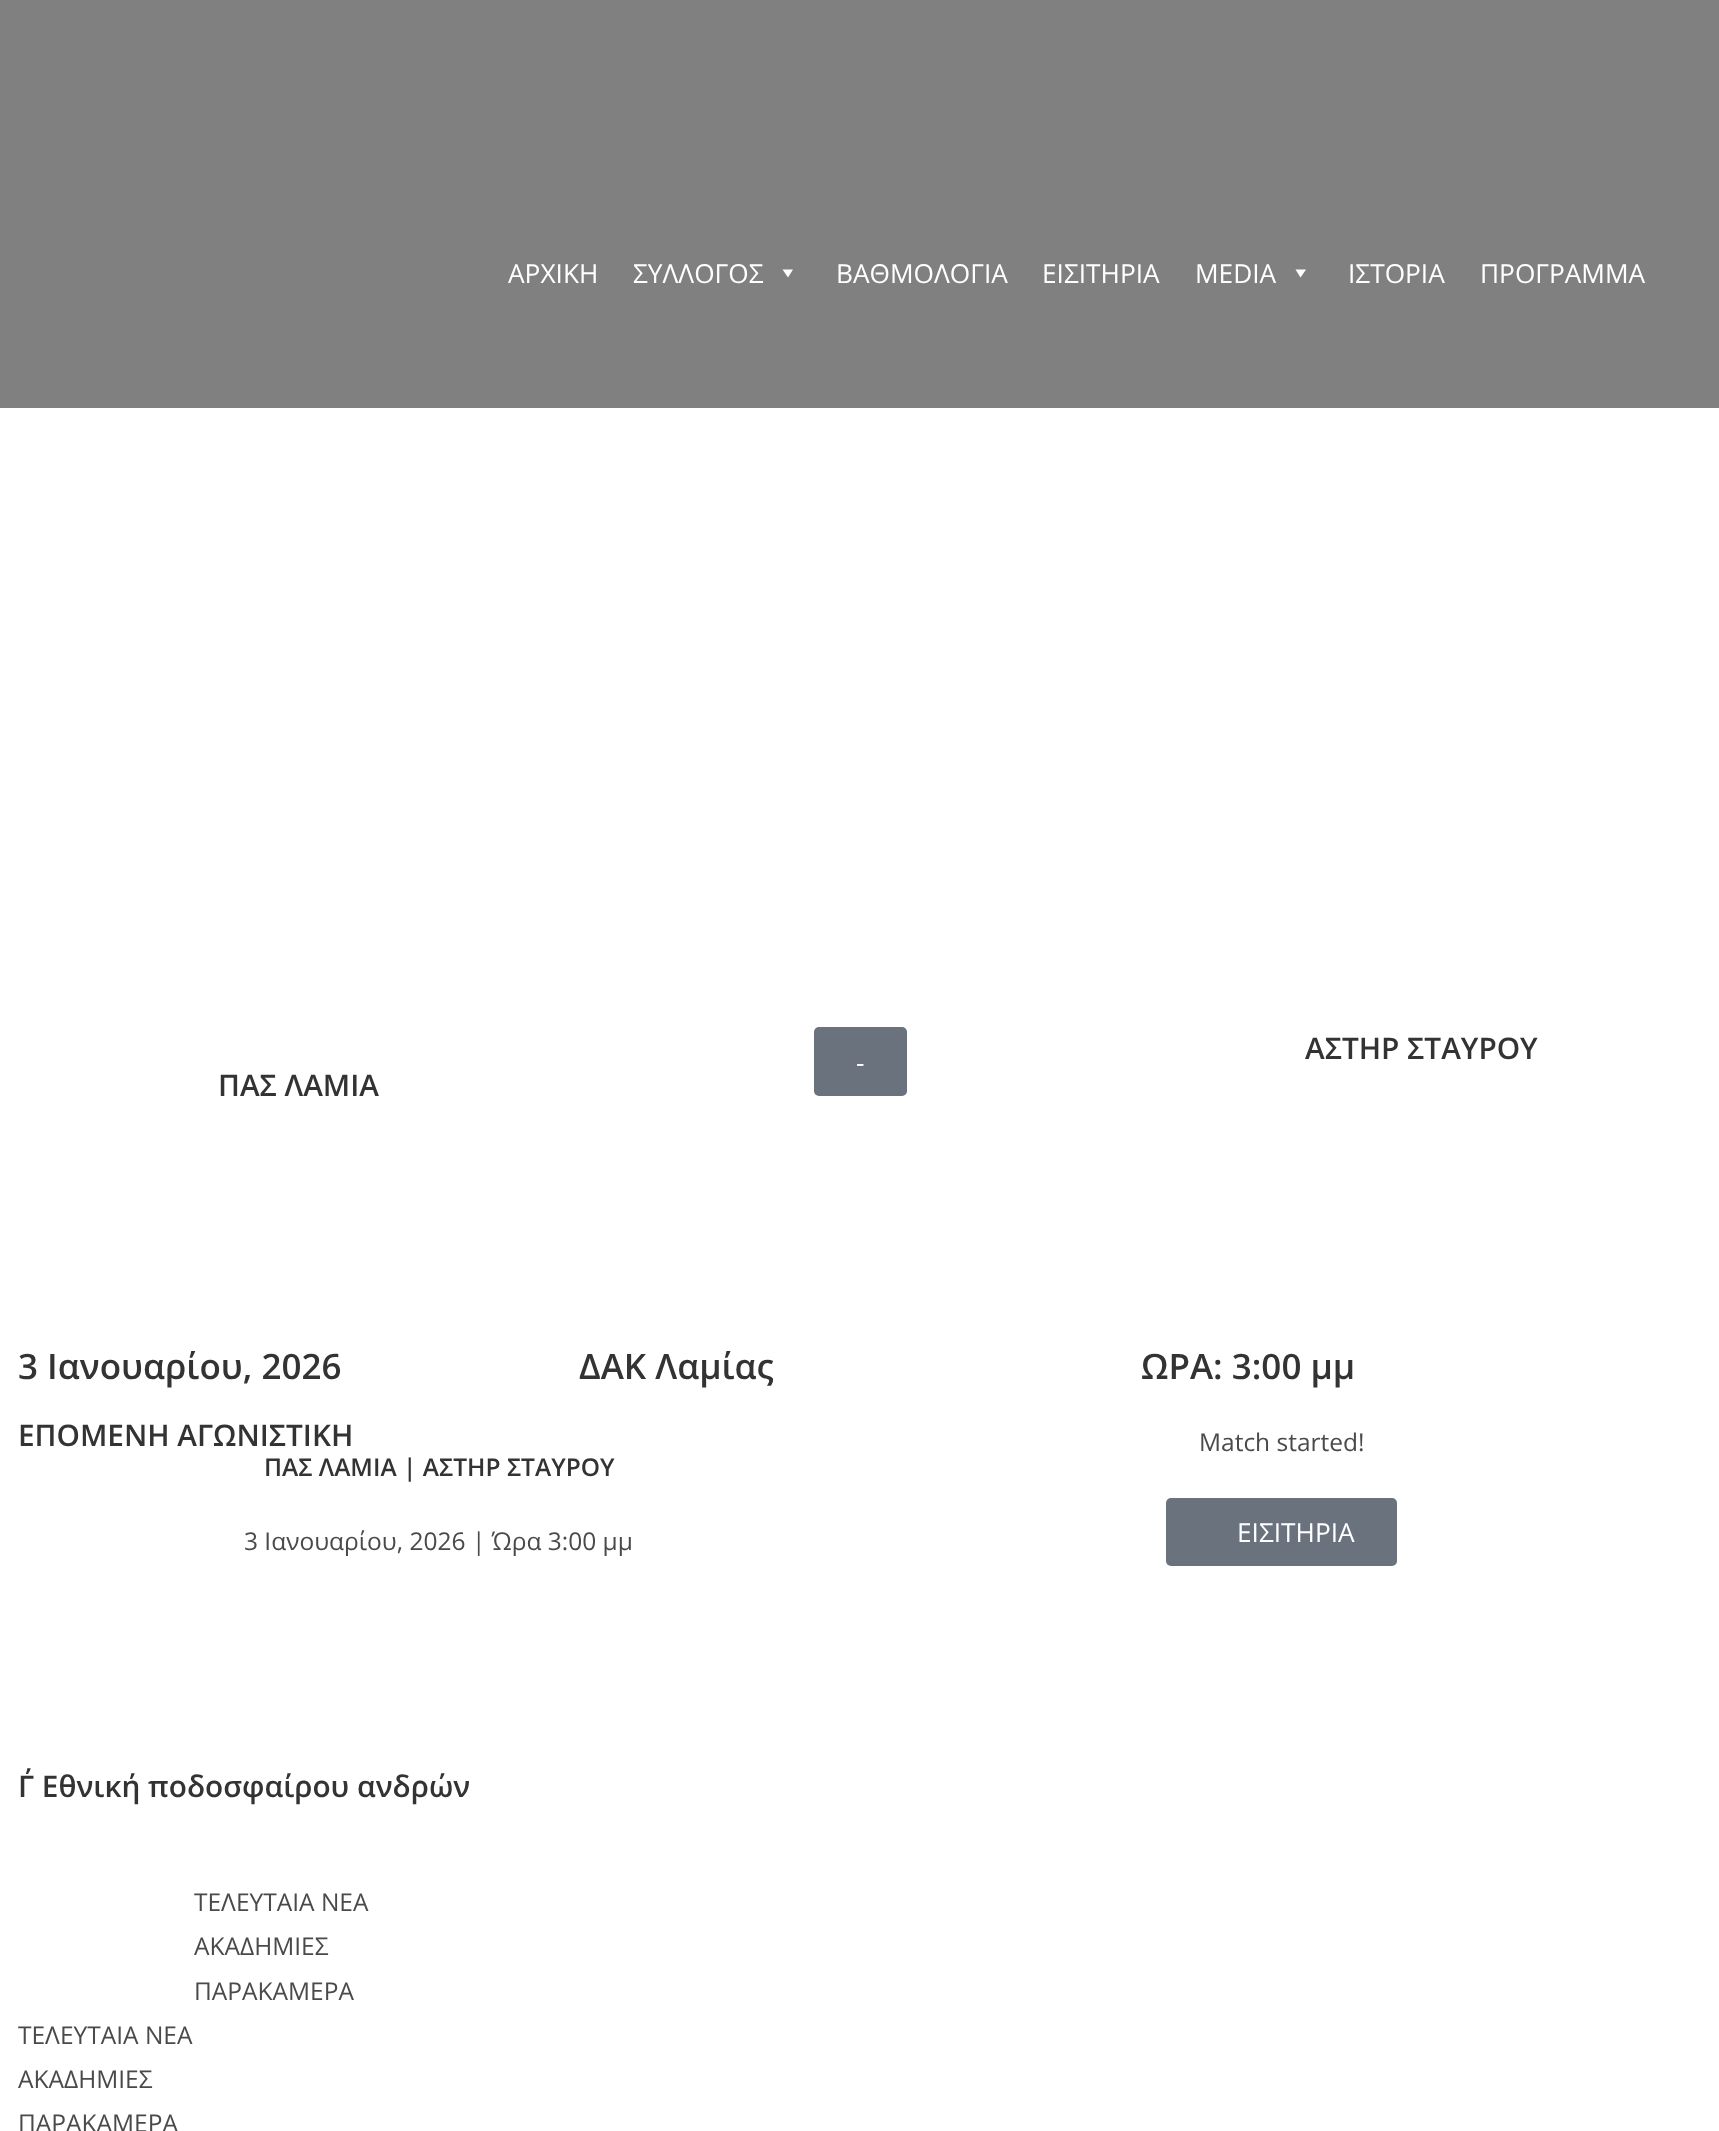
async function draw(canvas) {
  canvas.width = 1719;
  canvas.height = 2131;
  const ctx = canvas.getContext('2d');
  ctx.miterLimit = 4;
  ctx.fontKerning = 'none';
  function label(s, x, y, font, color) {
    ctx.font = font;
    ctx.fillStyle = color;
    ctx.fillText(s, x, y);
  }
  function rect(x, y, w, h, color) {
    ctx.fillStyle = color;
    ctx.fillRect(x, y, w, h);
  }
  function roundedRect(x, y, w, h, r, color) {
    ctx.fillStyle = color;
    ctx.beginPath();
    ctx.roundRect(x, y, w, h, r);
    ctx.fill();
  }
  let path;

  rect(0, 0, 1719, 2131, '#fff');
  rect(0, 0, 1719, 408, '#808080');
  label('ΑΡΧΙΚΗ', 508, 283, '26.25px Open Sans', '#fff');
  label('ΣΥΛΛΟΓΟΣ', 633, 283, '26.25px Open Sans', '#fff');
  path = new Path2D('M793 269.5L788 277.5L782.5 269.5Z');
  ctx.fill(path);
  label('ΒΑΘΜΟΛΟΓΙΑ', 836, 283, '26.25px Open Sans', '#fff');
  label('ΕΙΣΙΤΗΡΙΑ', 1042, 283, '26.25px Open Sans', '#fff');
  label('MEDIA', 1195, 283, '26.25px Open Sans', '#fff');
  path = new Path2D('M1306 269.5L1300.5 277.5L1295.5 269.5Z');
  ctx.fill(path);
  label('ΙΣΤΟΡΙΑ', 1348, 283, '26.25px Open Sans', '#fff');
  label('ΠΡOΓΡΑΜΜΑ', 1480, 283, '26.25px Open Sans', '#fff');
  label('ΑΣΤΗΡ ΣΤΑΥΡΟΥ', 1305, 1059, '600 29.75px Open Sans', '#333');
  roundedRect(814, 1027, 93, 69, 5, '#69727d');
  label('-', 856, 1072, '26.25px Open Sans', '#fff');
  label('ΠΑΣ ΛΑΜΙΑ', 218, 1096, '600 29.75px Open Sans', '#333');
  label('3 Ιανουαρίου, 2026', 18, 1379, '600 35px Open Sans', '#333');
  label('ΔΑΚ Λαμίας', 579, 1379, '600 35px Open Sans', '#333');
  label('ΩΡΑ: 3:00 μμ', 1141, 1379, '600 35px Open Sans', '#333');
  label('ΕΠΟΜΕΝΗ ΑΓΩΝΙΣΤΙΚΗ', 18, 1446, '600 29.75px Open Sans', '#333');
  label('ΠΑΣ ΛΑΜΙΑ | ΑΣΤΗΡ ΣΤΑΥΡΟΥ', 264, 1476, '600 24.5px Open Sans', '#333');
  label('3 Ιανουαρίου, 2026 | Ώρα 3:00 μμ', 244, 1550, '24.5px Open Sans', '#4a4a4a');
  label('Γ΄ Εθνική ποδοσφαίρου ανδρών', 18, 1797, '600 29.75px Open Sans', '#333');
  label('Match started!', 1199, 1451, '24.5px Open Sans', '#4a4a4a');
  roundedRect(1166, 1498, 231, 68, 5, '#69727d');
  label('ΕΙΣΙΤΗΡΙΑ', 1237, 1542, '26.25px Open Sans', '#fff');
  label('ΤΕΛΕΥΤΑΙΑ ΝΕΑ', 194, 1911, '24.5px Open Sans', '#4a4a4a');
  label('ΑΚΑΔΗΜΙΕΣ', 194, 1955, '24.5px Open Sans', '#4a4a4a');
  label('ΠΑΡΑΚΑΜΕΡΑ', 194, 2000, '24.5px Open Sans', '#4a4a4a');
  label('ΤΕΛΕΥΤΑΙΑ ΝΕΑ', 18, 2044, '24.5px Open Sans', '#4a4a4a');
  label('ΑΚΑΔΗΜΙΕΣ', 18, 2088, '24.5px Open Sans', '#4a4a4a');
  label('ΠΑΡΑΚΑΜΕΡΑ', 18, 2132, '24.5px Open Sans', '#4a4a4a');
}

draw(document.querySelector('canvas'));
